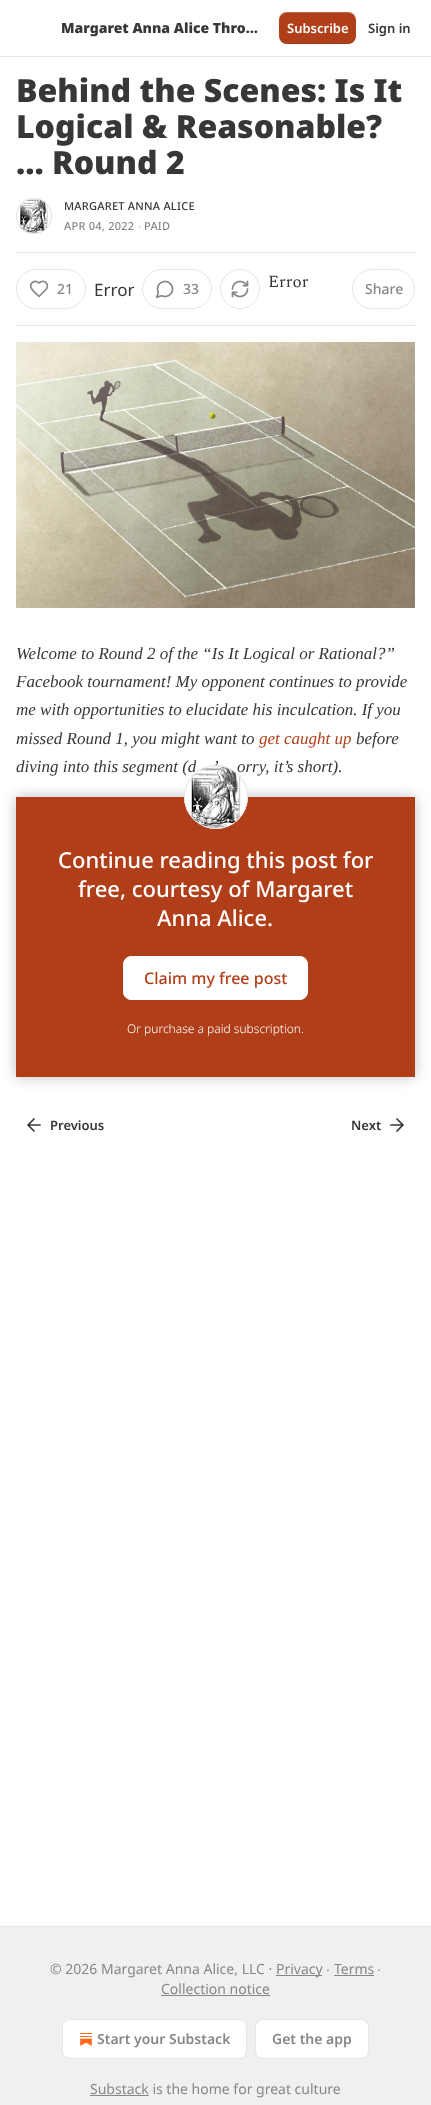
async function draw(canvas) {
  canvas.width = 431;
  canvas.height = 2105;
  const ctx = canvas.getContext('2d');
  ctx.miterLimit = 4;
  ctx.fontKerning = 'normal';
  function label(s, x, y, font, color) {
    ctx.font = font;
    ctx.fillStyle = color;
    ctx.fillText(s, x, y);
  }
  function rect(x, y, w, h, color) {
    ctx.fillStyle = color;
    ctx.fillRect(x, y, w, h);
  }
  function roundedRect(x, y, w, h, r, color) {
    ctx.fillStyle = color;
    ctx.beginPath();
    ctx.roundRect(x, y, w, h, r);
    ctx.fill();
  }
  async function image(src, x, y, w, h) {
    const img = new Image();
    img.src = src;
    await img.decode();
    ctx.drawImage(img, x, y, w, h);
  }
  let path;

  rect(0, 0, 431, 2105, '#fff');
  rect(0, 56, 431, 1, '#e6e6e6');
  label('Margaret Anna Alice Thro…', 61, 33, '900 14px Noto Sans', '#363737');
  roundedRect(279, 12, 77, 32, 8, '#b03f19');
  ctx.fillStyle = '#0000001a';
  path = new Path2D('M279 35C279 46 289 44 297 44H338C346 44 356 46 356 35C356 39 352 43 348 43H287C283 43 279 39 279 35Z');
  ctx.fill(path);
  ctx.fillStyle = '#ffffff33';
  path = new Path2D('M287 13H348C352 13 356 17 356 21C356 10 346 12 338 12H297C289 12 279 10 279 21C279 17 283 13 287 13Z');
  ctx.fill(path);
  label('Subscribe', 287, 33, '600 13px Noto Sans', '#fff');
  label('Sign in', 368, 33, '600 13px Noto Sans', '#363737');
  label('Behind the Scenes: Is It', 16, 102, '900 32px Noto Sans', '#363737');
  label('Logical & Reasonable?', 16, 138, '900 32px Noto Sans', '#363737');
  label('… Round 2', 16, 174, '900 32px Noto Sans', '#363737');
  ctx.beginPath();
  ctx.arc(34, 216, 17.5, 0, 2 * Math.PI);
  ctx.strokeStyle = '#e6e6e6';
  ctx.stroke();
  await image('assets/img1.png', 16, 198, 36, 36);
  ctx.beginPath();
  ctx.arc(34, 216, 17.5, 0, 2 * Math.PI);
  ctx.stroke();
  ctx.letterSpacing = '0.25px';
  label('MARGARET ANNA ALICE', 64, 210, '500 11px Noto Sans', '#363737');
  label('APR 04, 2022', 64, 230, '500 11px Noto Sans', '#868787');
  label('∙', 138, 230, '11px Liberation Sans', '#868787');
  label('PAID', 144, 230, '500 11px Noto Sans', '#868787');
  rect(16, 252, 399, 1, '#e6e6e6');
  rect(16, 325, 399, 1, '#e6e6e6');
  ctx.beginPath();
  ctx.arc(240, 289, 19.5, 0, 2 * Math.PI);
  ctx.stroke();
  await image('assets/img2.png', 231, 280, 18, 18);
  ctx.letterSpacing = '0px';
  label('Error', 268, 287, '17px Spectral', '#363737');
  ctx.beginPath();
  ctx.roundRect(16.5, 269.5, 69, 39, 19.5);
  ctx.stroke();
  path = new Path2D('M45 290.5C51 284.5 44 278.5 39 283C35.5 279.5 29.5 282.5 31 287.5C32 290.5 37 294.5 39 296.5Z');
  ctx.strokeStyle = '#868787';
  ctx.lineWidth = 1.7;
  ctx.lineCap = 'round';
  ctx.lineJoin = 'round';
  ctx.stroke(path);
  label('21', 57, 294, '500 14px Noto Sans', '#868787');
  label('Error', 94, 296, '17px Noto Sans', '#363737');
  ctx.beginPath();
  ctx.roundRect(142.5, 269.5, 69, 39, 19.5);
  ctx.strokeStyle = '#e6e6e6';
  ctx.lineWidth = 1;
  ctx.lineJoin = 'miter';
  ctx.stroke();
  await image('assets/img3.png', 155, 280, 19, 19);
  label('33', 183, 294, '500 14px Noto Sans', '#868787');
  ctx.beginPath();
  ctx.roundRect(352.5, 269.5, 62, 39, 19.5);
  ctx.stroke();
  label('Share', 365, 294, '500 14px Noto Sans', '#868787');
  await image('assets/img4.png', 16, 342, 399, 266);
  label('Welcome to Round 2 of the “Is It Logical or Rational?”', 16, 659, 'italic 17px Liberation Serif', '#363737');
  label('Facebook tournament! My opponent continues to provide', 16, 687, 'italic 17px Liberation Serif', '#363737');
  label('me with opportunities to elucidate his inculcation. If you', 16, 715, 'italic 17px Liberation Serif', '#363737');
  label('missed Round 1, you might want to', 16, 744, 'italic 17px Liberation Serif', '#363737');
  label('get caught up', 259, 744, 'italic 17px Liberation Serif', '#b03f19');
  label('before', 356, 744, 'italic 17px Liberation Serif', '#363737');
  label('diving into this segment (d', 16, 772, 'italic 17px Liberation Serif', '#363737');
  label('’', 213, 772, 'italic 17px Liberation Serif', '#363737');
  label('orry, it’s short).', 237, 772, 'italic 17px Liberation Serif', '#363737');
  rect(16, 797, 399, 280, '#b03f19');
  ctx.fillStyle = '#fff';
  ctx.beginPath();
  ctx.roundRect(123.5, 956.5, 184, 43, 7.5);
  ctx.fill();
  ctx.strokeStyle = '#fff';
  ctx.stroke();
  ctx.save();
  path = new Path2D('M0 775H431V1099H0ZM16 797H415V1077H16Z');
  ctx.clip(path, 'evenodd');
  ctx.fillStyle = '#00000040';
  ctx.filter = 'blur(7px)';
  ctx.beginPath();
  ctx.rect(16, 797, 399, 280);
  ctx.fill();
  ctx.filter = 'none';
  ctx.restore();
  ctx.beginPath();
  ctx.arc(216, 797, 31.5, 0, 2 * Math.PI);
  ctx.strokeStyle = '#e6e6e6';
  ctx.stroke();
  await image('assets/img5.png', 184, 765, 64, 64);
  ctx.beginPath();
  ctx.arc(216, 797, 31.5, 0, 2 * Math.PI);
  ctx.stroke();
  label('Continue reading this post for', 58, 868, '500 22px Noto Sans', '#fff');
  label('free, courtesy of Margaret', 78, 897, '500 22px Noto Sans', '#fff');
  label('Anna Alice.', 157, 926, '500 22px Noto Sans', '#fff');
  label('Claim my free post', 144, 984, '500 16px Noto Sans', '#b03f19');
  label('Or purchase a paid subscription.', 127, 1033, '300 12px Noto Sans', '#fff');
  path = new Path2D('M34 1131L28 1125L34 1119M40 1125H28');
  ctx.strokeStyle = '#363737';
  ctx.lineWidth = 1.7;
  ctx.lineJoin = 'round';
  ctx.stroke(path);
  label('Previous', 50, 1130, '600 13px Noto Sans', '#363737');
  label('Next', 351, 1130, '600 13px Noto Sans', '#363737');
  path = new Path2D('M391 1125H403M397 1119L403 1125L397 1131');
  ctx.stroke(path);
  rect(0, 1927, 431, 178, '#f0f0f0');
  rect(0, 1926, 431, 1, '#e6e6e6');
  label('© 2026 Margaret Anna Alice, LLC ·', 50, 1974, '14px Noto Sans', '#868787');
  rect(276, 1975, 46, 1, '#868787');
  label('Privacy', 276, 1974, '14px Noto Sans', '#868787');
  label('∙', 326, 1974, '14px Liberation Sans', '#868787');
  label('Terms', 334, 1974, '14px Noto Sans', '#868787');
  rect(334, 1975, 40, 1, '#868787');
  label('∙', 377, 1974, '14px Liberation Sans', '#868787');
  label('Collection notice', 161, 1994, '14px Noto Sans', '#868787');
  rect(161, 1995, 109, 1, '#868787');
  ctx.fillStyle = '#fff';
  ctx.beginPath();
  ctx.roundRect(62.5, 2019.5, 184, 39, 7.5);
  ctx.fill();
  ctx.strokeStyle = '#e6e6e6';
  ctx.lineWidth = 1;
  ctx.lineJoin = 'miter';
  ctx.stroke();
  await image('assets/img6.png', 80, 2033, 12, 13);
  label('Start your Substack', 97, 2044, '600 14px Noto Sans', '#868787');
  ctx.fillStyle = '#fff';
  ctx.beginPath();
  ctx.roundRect(255.5, 2019.5, 113, 39, 7.5);
  ctx.fill();
  ctx.stroke();
  label('Get the app', 272, 2044, '600 14px Noto Sans', '#868787');
  rect(90, 2095, 59, 1, '#868787');
  label('Substack is the home for great culture', 90, 2094, '14px Noto Sans', '#868787');
}

draw(document.querySelector('canvas'));
